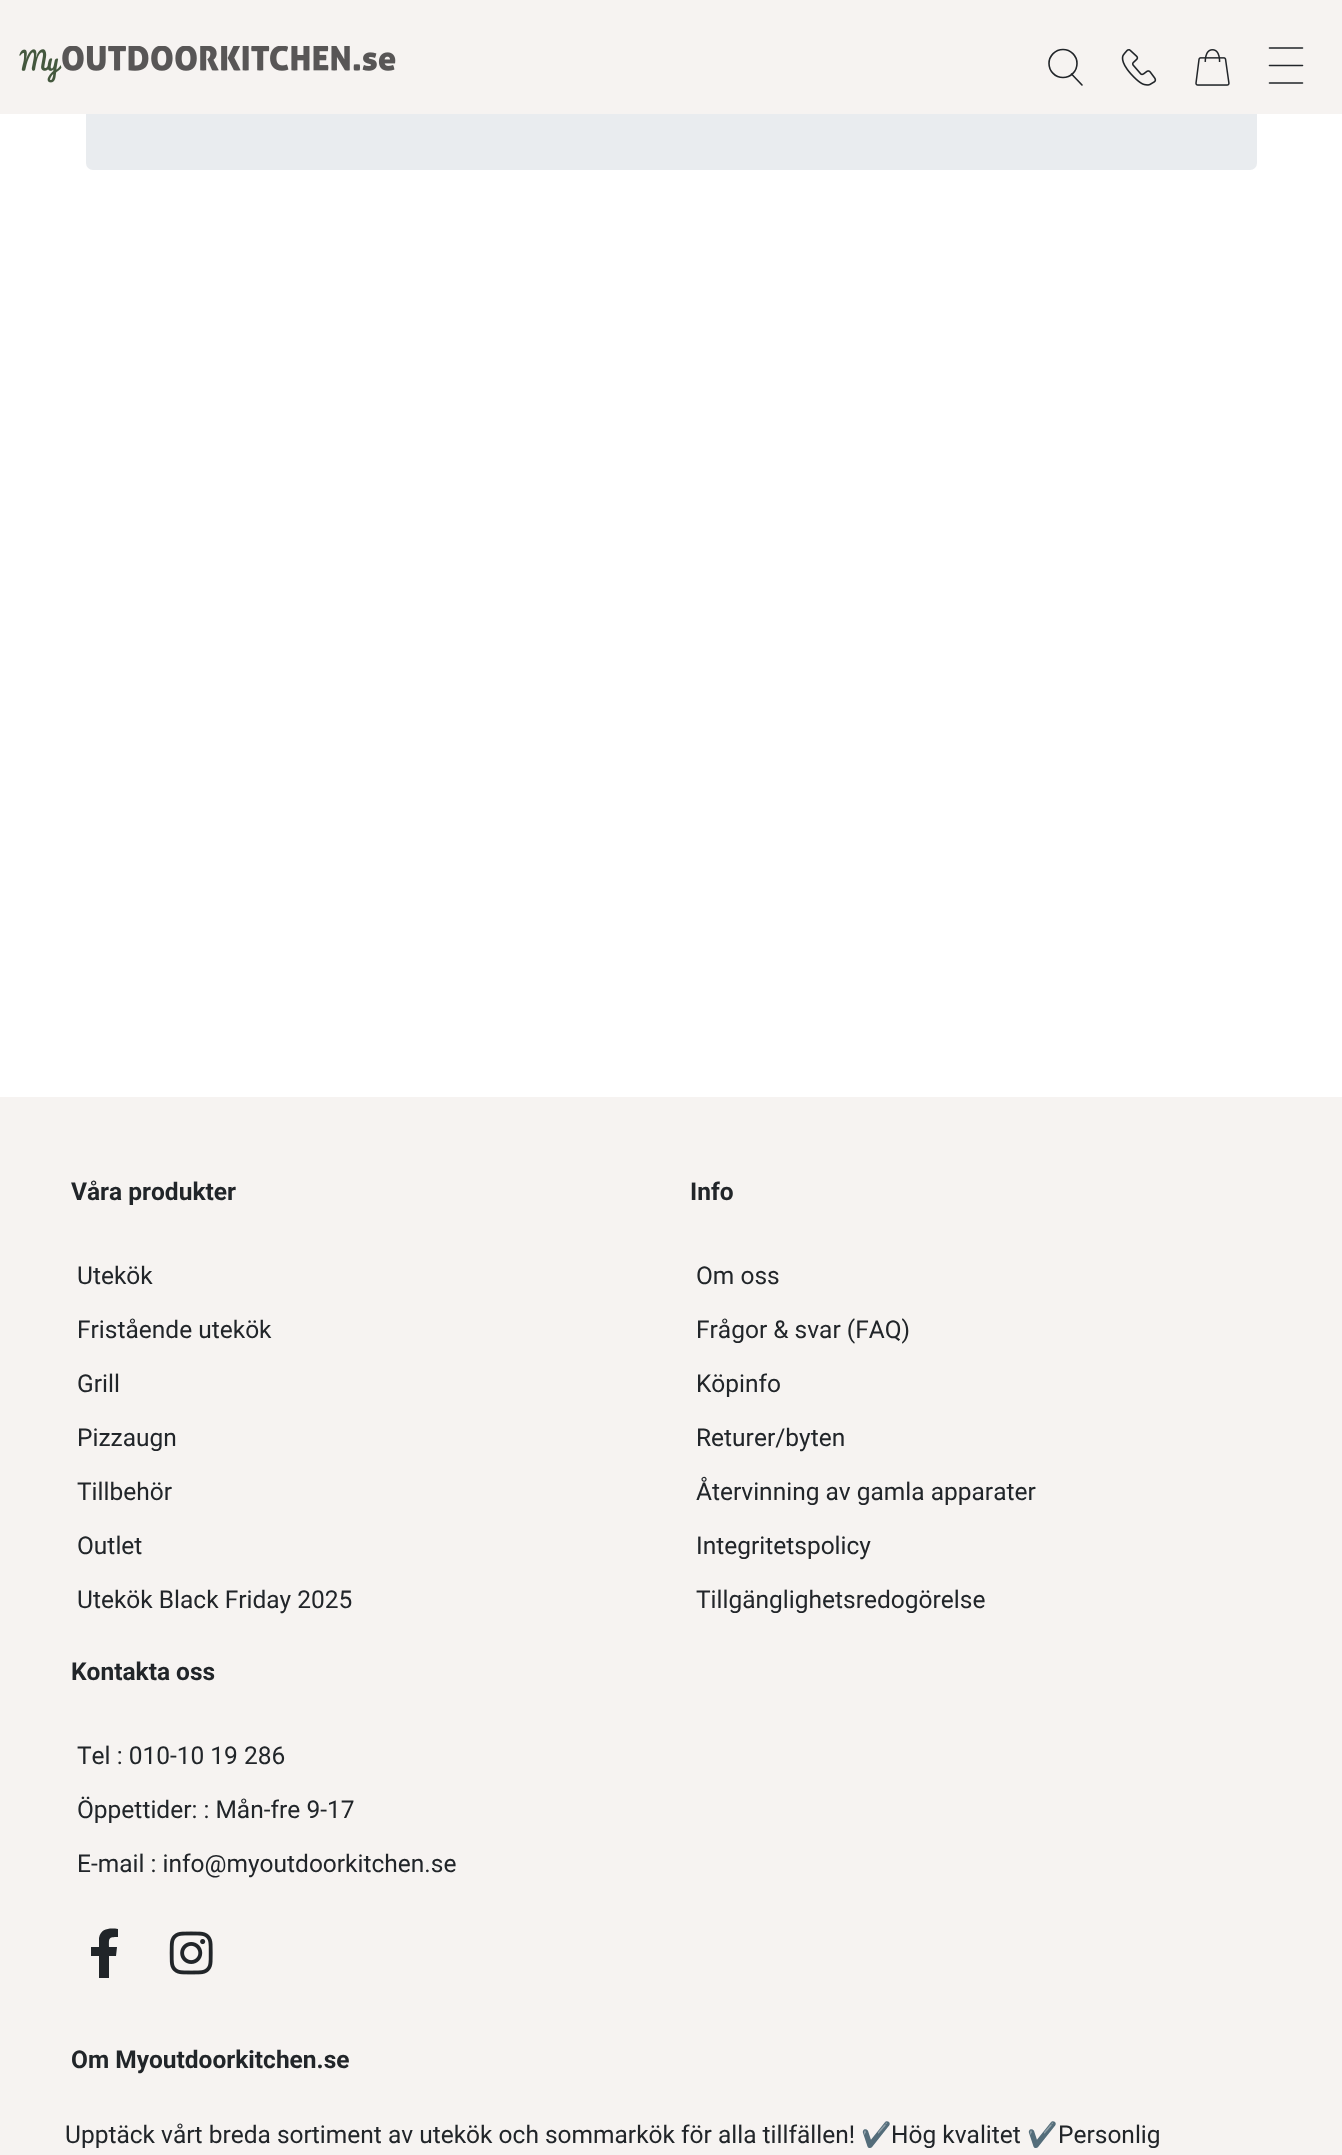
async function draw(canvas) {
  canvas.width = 1342;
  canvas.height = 2155;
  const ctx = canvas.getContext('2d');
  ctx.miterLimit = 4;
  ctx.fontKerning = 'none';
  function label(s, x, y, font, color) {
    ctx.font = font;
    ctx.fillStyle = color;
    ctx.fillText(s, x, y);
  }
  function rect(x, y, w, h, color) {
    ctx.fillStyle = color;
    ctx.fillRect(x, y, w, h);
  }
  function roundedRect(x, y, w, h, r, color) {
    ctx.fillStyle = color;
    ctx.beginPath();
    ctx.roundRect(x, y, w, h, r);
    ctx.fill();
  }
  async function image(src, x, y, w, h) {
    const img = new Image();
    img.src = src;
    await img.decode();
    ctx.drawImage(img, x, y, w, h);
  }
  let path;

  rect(0, 0, 1342, 2155, '#fff');
  roundedRect(86, -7, 1171, 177, 7, '#e9ecef');
  rect(0, 0, 1342, 114, '#f6f3f1');
  await image('assets/img1.png', 19, 46, 377, 37);
  path = new Path2D('M1071.5 74L1082 85');
  ctx.strokeStyle = '#212529';
  ctx.lineWidth = 1.6;
  ctx.lineCap = 'round';
  ctx.stroke(path);
  ctx.beginPath();
  ctx.arc(1063, 63.5, 14, 0, 2 * Math.PI);
  ctx.stroke();
  await image('assets/img2.png', 1121, 49, 36, 37);
  await image('assets/img3.png', 1195, 49, 35, 37);
  path = new Path2D('M1269.5 48H1302.5M1269.5 65.5H1302.5M1269.5 83H1302.5');
  ctx.stroke(path);
  rect(0, 1097, 1342, 1058, '#f6f3f1');
  label('Våra produkter', 71, 1200, 'bold 24.5px Roboto', '#212529');
  label('Utekök', 77, 1284, '24.5px Roboto', '#212529');
  label('Fristående utekök', 77, 1338, '24.5px Roboto', '#212529');
  label('Grill', 77, 1392, '24.5px Roboto', '#212529');
  label('Pizzaugn', 77, 1446, '24.5px Roboto', '#212529');
  label('Tillbehör', 77, 1500, '24.5px Roboto', '#212529');
  label('Outlet', 77, 1554, '24.5px Roboto', '#212529');
  label('Utekök Black Friday 2025', 77, 1608, '24.5px Roboto', '#212529');
  label('Kontakta oss', 71, 1680, 'bold 24.5px Roboto', '#212529');
  label('Tel : 010-10 19 286', 77, 1764, '24.5px Roboto', '#212529');
  label('Öppettider: : Mån-fre 9-17', 77, 1818, '24.5px Roboto', '#212529');
  label('E-mail : info@myoutdoorkitchen.se', 77, 1872, '24.5px Roboto', '#212529');
  path = new Path2D('M116 1956L117 1947H109C109 1938 108 1937 118 1937V1929C110 1928 101 1928 99 1938V1947H91V1956H99V1978H109V1956Z');
  ctx.fill(path);
  await image('assets/img4.png', 169, 1931, 44, 44);
  label('Info', 690, 1200, 'bold 24.5px Roboto', '#212529');
  label('Om oss', 696, 1284, '24.5px Roboto', '#212529');
  label('Frågor & svar (FAQ)', 696, 1338, '24.5px Roboto', '#212529');
  label('Köpinfo', 696, 1392, '24.5px Roboto', '#212529');
  label('Returer/byten', 696, 1446, '24.5px Roboto', '#212529');
  label('Återvinning av gamla apparater', 696, 1500, '24.5px Roboto', '#212529');
  label('Integritetspolicy', 696, 1554, '24.5px Roboto', '#212529');
  label('Tillgänglighetsredogörelse', 696, 1608, '24.5px Roboto', '#212529');
  label('Om Myoutdoorkitchen.se', 71, 2068, 'bold 24.5px Roboto', '#212529');
  label('Upptäck vårt breda sortiment av utekök och sommarkök för alla tillfällen!', 65, 2143, '24.5px Roboto', '#212529');
  label('✔️', 861, 2143, '24.5px Noto Color Emoji', '#212529');
  label('Hög kvalitet', 891, 2143, '24.5px Roboto', '#212529');
  label('✔️', 1027, 2143, '24.5px Noto Color Emoji', '#212529');
  label('Personlig', 1058, 2143, '24.5px Roboto', '#212529');
}

draw(document.querySelector('canvas'));
